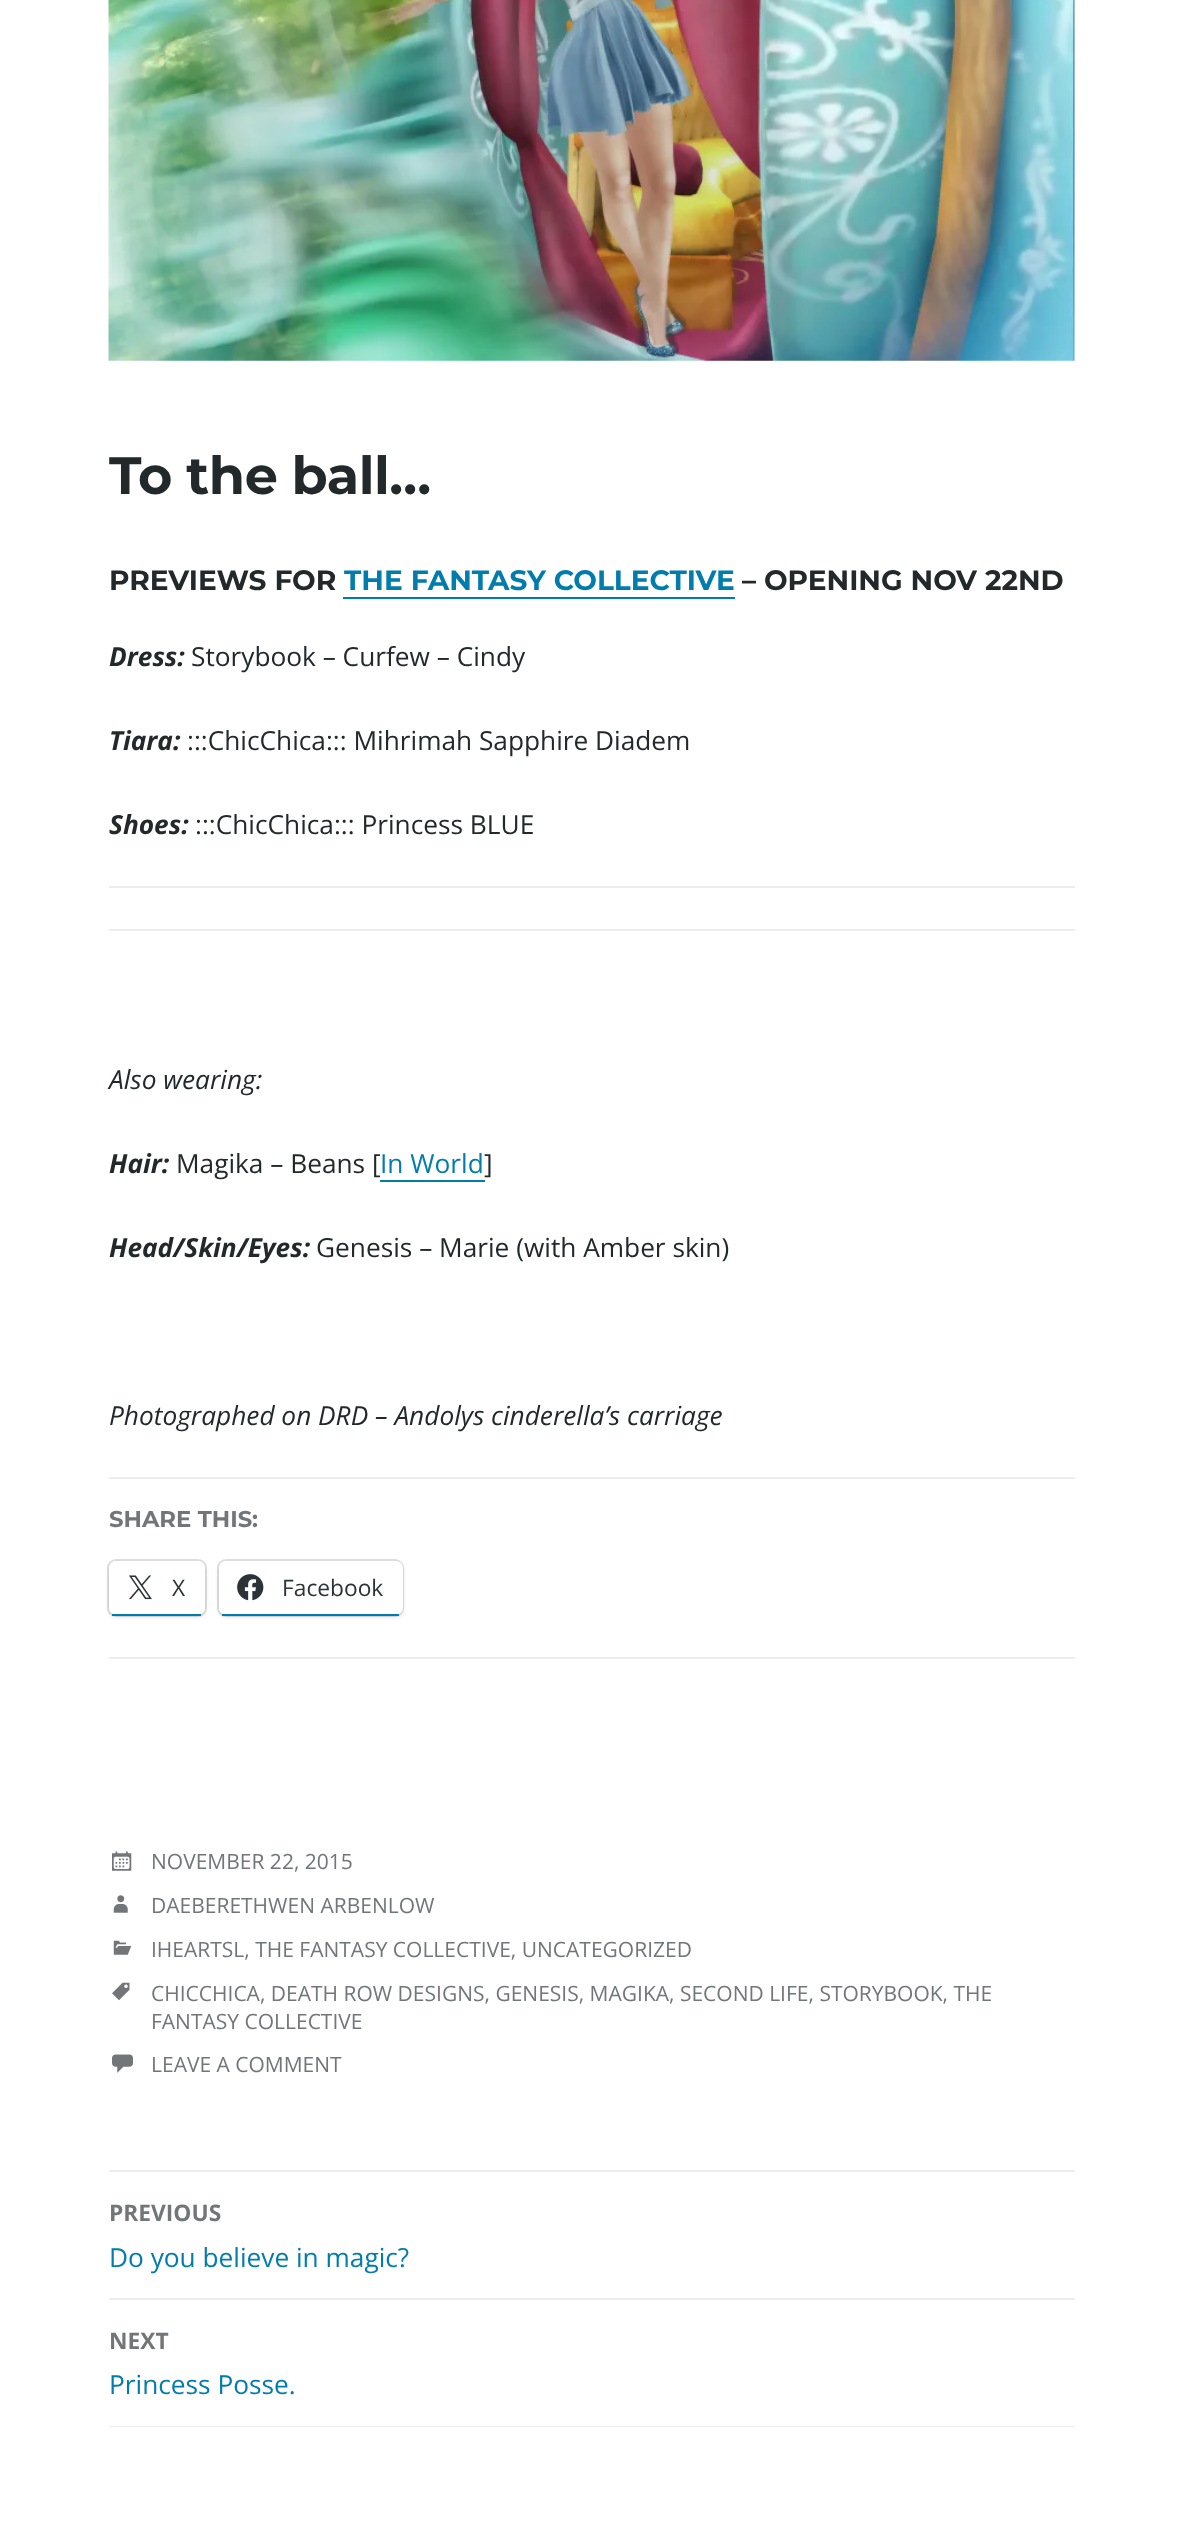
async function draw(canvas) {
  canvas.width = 1182;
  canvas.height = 2533;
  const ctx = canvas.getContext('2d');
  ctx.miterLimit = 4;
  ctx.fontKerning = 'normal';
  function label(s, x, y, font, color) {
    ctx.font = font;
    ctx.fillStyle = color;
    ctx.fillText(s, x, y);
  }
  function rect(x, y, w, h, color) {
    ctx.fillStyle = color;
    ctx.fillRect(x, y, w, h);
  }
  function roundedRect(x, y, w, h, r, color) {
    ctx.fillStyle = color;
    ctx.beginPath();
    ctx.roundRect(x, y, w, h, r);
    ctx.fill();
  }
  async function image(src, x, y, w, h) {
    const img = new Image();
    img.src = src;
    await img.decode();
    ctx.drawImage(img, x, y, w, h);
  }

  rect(0, 0, 1182, 2533, '#fff');
  await image('assets/img1.png', 108, 0, 967, 361);
  ctx.save();
  ctx.beginPath();
  ctx.rect(109, 445, 966, 105);
  ctx.clip();
  ctx.letterSpacing = '-0.5px';
  label('To the ball…', 109, 494, 'bold 52.5px Montserrat', '#23292b');
  ctx.restore();
  label('PREVIEWS FOR', 109, 590, 'bold 28px Montserrat', '#23292b');
  label('THE FANTASY COLLECTIVE', 344, 590, 'bold 28px Montserrat', '#007cad');
  rect(343, 597, 392, 2, '#007cad');
  label('– OPENING NOV 22ND', 742, 590, 'bold 28px Montserrat', '#23292b');
  label('Dress:', 109, 666, 'italic bold 26.25px Open Sans', '#23292b');
  label('Storybook – Curfew – Cindy', 191, 666, '26.25px Open Sans', '#23292b');
  label('Tiara:', 109, 750, 'italic bold 26.25px Open Sans', '#23292b');
  label(':::ChicChica::: Mihrimah Sapphire Diadem', 187, 750, '26.25px Open Sans', '#23292b');
  label('Shoes:', 109, 834, 'italic bold 26.25px Open Sans', '#23292b');
  label(':::ChicChica::: Princess BLUE', 195, 834, '26.25px Open Sans', '#23292b');
  rect(109, 886, 966, 2, '#ededed');
  rect(109, 929, 966, 2, '#ededed');
  label('Also wearing:', 109, 1089, 'italic 26.25px Open Sans', '#23292b');
  label('Hair:', 109, 1173, 'italic bold 26.25px Open Sans', '#23292b');
  label('Magika – Beans [', 176, 1173, '26.25px Open Sans', '#23292b');
  label('In World', 380, 1173, '26.25px Open Sans', '#007cad');
  rect(380, 1180, 105, 2, '#007cad');
  label(']', 484, 1173, '26.25px Open Sans', '#23292b');
  label('Head/Skin/Eyes:', 109, 1257, 'italic bold 26.25px Open Sans', '#23292b');
  label('Genesis – Marie (with Amber skin)', 316, 1257, '26.25px Open Sans', '#23292b');
  label('Photographed on DRD – Andolys cinderella’s carriage', 109, 1425, 'italic 26.25px Open Sans', '#23292b');
  rect(109, 1477, 966, 2, '#ededed');
  label('SHARE THIS:', 109, 1527, 'bold 22.75px Montserrat', '#737678');
  ctx.beginPath();
  ctx.roundRect(108, 1560, 98, 56, 8);
  ctx.strokeStyle = '#e0e0e0';
  ctx.lineWidth = 2;
  ctx.stroke();
  ctx.fillStyle = '#0000001f';
  ctx.filter = 'blur(2px)';
  ctx.beginPath();
  ctx.roundRect(109, 1563, 96, 54, 7);
  ctx.fill();
  ctx.filter = 'none';
  roundedRect(109, 1561, 96, 54, 7, '#fff');
  rect(112, 1614, 89, 2, '#007cad');
  await image('assets/img2.png', 129, 1575, 23, 25);
  label('X', 172, 1596, '22.75px Open Sans', '#2c3338');
  ctx.beginPath();
  ctx.roundRect(218, 1560, 185, 56, 8);
  ctx.stroke();
  ctx.fillStyle = '#0000001f';
  ctx.filter = 'blur(2px)';
  ctx.beginPath();
  ctx.roundRect(219, 1563, 184, 54, 7);
  ctx.fill();
  ctx.filter = 'none';
  roundedRect(219, 1561, 184, 54, 7, '#fff');
  rect(222, 1614, 177, 2, '#007cad');
  await image('assets/img3.png', 237, 1574, 27, 27);
  label('Facebook', 282, 1596, '22.75px Open Sans', '#2c3338');
  rect(109, 1657, 966, 2, '#ededed');
  await image('assets/img4.png', 112, 1851, 20, 20);
  label('NOVEMBER 22, 2015', 151, 1869, '21px Open Sans', '#737678');
  await image('assets/img5.png', 113, 1895, 15, 18);
  label('DAEBERETHWEN ARBENLOW', 151, 1913, '21px Open Sans', '#737678');
  await image('assets/img6.png', 113, 1940, 19, 15);
  label('IHEARTSL, THE FANTASY COLLECTIVE, UNCATEGORIZED', 151, 1957, '21px Open Sans', '#737678');
  await image('assets/img7.png', 112, 1982, 18, 19);
  label('CHICCHICA, DEATH ROW DESIGNS, GENESIS, MAGIKA, SECOND LIFE, STORYBOOK, THE', 151, 2001, '21px Open Sans', '#737678');
  label('FANTASY COLLECTIVE', 151, 2029, '21px Open Sans', '#737678');
  await image('assets/img8.png', 112, 2054, 21, 19);
  label('LEAVE A COMMENT', 151, 2072, '21px Open Sans', '#737678');
  rect(109, 2170, 966, 2, '#ededed');
  rect(109, 2298, 966, 2, '#ededed');
  label('PREVIOUS', 109, 2221, 'bold 22.75px Open Sans', '#737678');
  label('Do you believe in magic?', 109, 2267, '26.25px Open Sans', '#007cad');
  rect(109, 2426, 966, 1, '#ededed');
  label('NEXT', 109, 2349, 'bold 22.75px Open Sans', '#737678');
  label('Princess Posse.', 109, 2394, '26.25px Open Sans', '#007cad');
}

draw(document.querySelector('canvas'));
